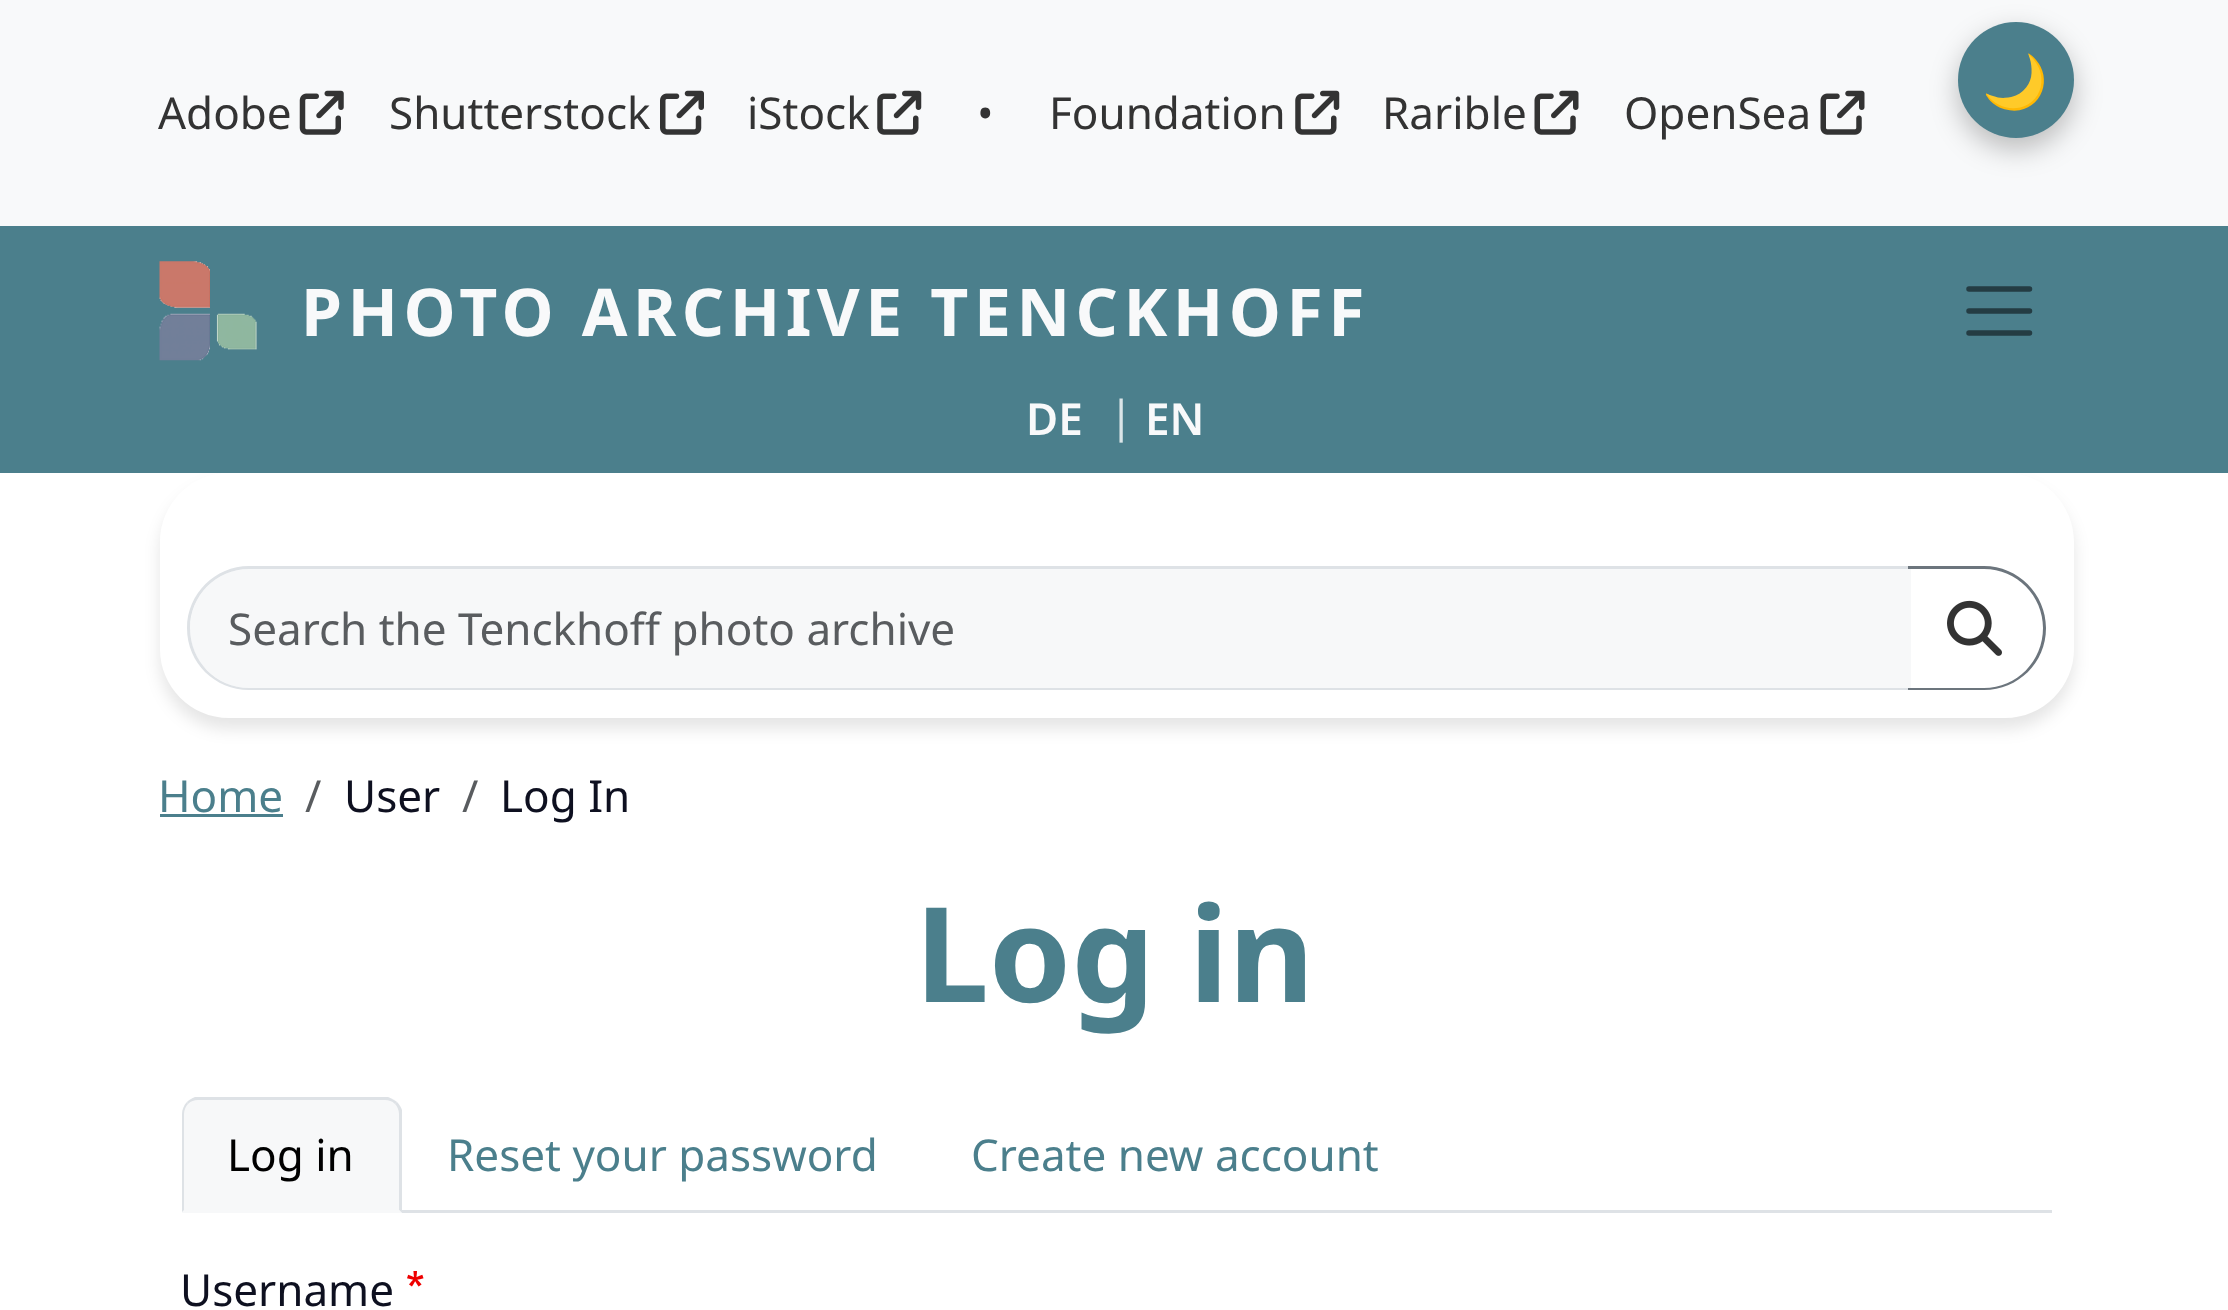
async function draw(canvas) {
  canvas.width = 2228;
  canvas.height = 1310;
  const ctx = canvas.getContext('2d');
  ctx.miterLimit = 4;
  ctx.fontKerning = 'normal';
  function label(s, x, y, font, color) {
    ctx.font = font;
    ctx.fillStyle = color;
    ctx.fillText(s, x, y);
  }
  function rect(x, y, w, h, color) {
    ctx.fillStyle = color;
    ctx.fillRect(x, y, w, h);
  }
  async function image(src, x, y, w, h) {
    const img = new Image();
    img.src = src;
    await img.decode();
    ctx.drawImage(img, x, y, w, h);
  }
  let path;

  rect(0, 0, 2228, 1310, '#fff');
  rect(0, 0, 2228, 226, '#f8f9fa');
  ctx.fillStyle = '#00000040';
  ctx.filter = 'blur(14px)';
  ctx.beginPath();
  ctx.roundRect(1958, 33, 116, 116, 58);
  ctx.fill();
  ctx.filter = 'none';
  ctx.fillStyle = '#4b7f8c';
  ctx.beginPath();
  ctx.arc(2016, 80, 58, 0, 2 * Math.PI);
  ctx.fill();
  label('🌙', 1982, 100, '53px Noto Color Emoji', '#fff');
  label('Adobe', 158, 129, '44px Noto Sans', '#333');
  await image('assets/img1.png', 299, 90, 45, 45);
  label('Shutterstock', 389, 129, '44px Noto Sans', '#333');
  await image('assets/img2.png', 660, 90, 44, 45);
  label('iStock', 747, 129, '44px Noto Sans', '#333');
  await image('assets/img3.png', 877, 90, 45, 45);
  label('•', 977, 129, '44px Noto Sans', '#333');
  label('Foundation', 1049, 129, '44px Noto Sans', '#333');
  await image('assets/img3.png', 1295, 90, 45, 45);
  label('Rarible', 1382, 129, '44px Noto Sans', '#333');
  await image('assets/img4.png', 1534, 90, 45, 45);
  label('OpenSea', 1624, 129, '44px Noto Sans', '#333');
  await image('assets/img4.png', 1820, 90, 45, 45);
  ctx.save();
  path = new Path2D('M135 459H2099V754H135ZM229 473H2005C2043 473 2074 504 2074 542V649C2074 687 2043 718 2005 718H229C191 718 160 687 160 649V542C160 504 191 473 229 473Z');
  ctx.clip(path, 'evenodd');
  ctx.fillStyle = '#0000001a';
  ctx.filter = 'blur(8px)';
  ctx.beginPath();
  ctx.roundRect(160, 484, 1914, 245, 69);
  ctx.fill();
  ctx.filter = 'none';
  ctx.restore();
  rect(0, 226, 2228, 247, '#4b7f8c');
  await image('assets/img5.png', 159, 261, 98, 100);
  ctx.letterSpacing = '5.5px';
  label('PHOTO ARCHIVE TENCKHOFF', 301, 336, 'bold 66px Noto Sans', '#f8f9fa');
  path = new Path2D('M1969 289H2029.5M1969 311H2029.5M1969 333H2029.5');
  ctx.strokeStyle = '#243c43';
  ctx.lineWidth = 5.5;
  ctx.lineCap = 'round';
  ctx.stroke(path);
  ctx.letterSpacing = '0px';
  label('DE', 1026, 435, '600 44px Noto Sans', '#f8f9fa');
  label('|', 1109, 432, '44px Noto Sans', '#dbe5e8');
  label('EN', 1145, 435, '600 44px Noto Sans', '#f8f9fa');
  ctx.fillStyle = '#f7f8f9';
  ctx.beginPath();
  ctx.roundRect(190, 569, 1721, 119, [59.5, 0, 0, 59.5]);
  ctx.fill();
  ctx.fillStyle = '#dee2e6';
  path = new Path2D('M249 566H1911V690H249C215 690 187 663 187 628C187 594 215 566 249 566ZM249 569H1911V688H249C216 688 190 661 190 628C190 596 216 569 249 569Z');
  ctx.fill(path, 'evenodd');
  label('Search the Tenckhoff photo archive', 228, 645, '44px Noto Sans', '#595c5f');
  ctx.fillStyle = '#6c757d';
  path = new Path2D('M1908 566H1984C2018 566 2046 594 2046 628C2046 663 2018 690 1984 690H1908ZM1908 569H1984C2017 569 2043 596 2043 628C2043 661 2017 688 1984 688H1908Z');
  ctx.fill(path, 'evenodd');
  await image('assets/img6.png', 1947, 600, 55, 56);
  label('Home', 158, 812, '44px Noto Sans', '#4b7f8c');
  rect(160, 814, 123, 3, '#4b7f8c');
  label('/', 305, 812, '44px Noto Sans', '#595c5f');
  label('User', 344, 812, '44px Noto Sans', '#0e1020');
  label('/', 462, 812, '44px Noto Sans', '#595c5f');
  label('Log In', 500, 812, '44px Noto Sans', '#0e1020');
  label('Log in', 915, 1002, 'bold 132px Noto Sans', '#4b7f8c');
  rect(402, 1210, 1650, 3, '#dee2e6');
  ctx.fillStyle = '#f7f8f9';
  ctx.beginPath();
  ctx.roundRect(182, 1097, 220, 116, [17, 17, 0, 0]);
  ctx.fill();
  ctx.fillStyle = '#dee2e6';
  path = new Path2D('M198 1100C194 1100 191 1101 188 1104L187 1102C189 1100 192 1098 195 1097H388C391 1098 394 1100 397 1102L395 1104C392 1101 389 1100 385 1100Z');
  ctx.fill(path);
  path = new Path2D('M397 1102C399 1104 401 1107 402 1110V1213L399 1210V1114C399 1110 397 1106 395 1104Z');
  ctx.fill(path);
  ctx.fillStyle = '#f7f8f9';
  path = new Path2D('M402 1213H182L184 1210H399Z');
  ctx.fill(path);
  ctx.fillStyle = '#dee2e6';
  path = new Path2D('M182 1212V1114C182 1110 184 1105 187 1102L188 1104C186 1106 184 1110 184 1114V1210Z');
  ctx.fill(path);
  label('Log in', 227, 1171, '44px Noto Sans', '#000');
  label('Reset your password', 447, 1171, '44px Noto Sans', '#4b7f8c');
  label('Create new account', 971, 1171, '44px Noto Sans', '#4b7f8c');
  label('Username', 180, 1306, '44px Noto Sans', '#0e1020');
  await image('assets/img7.png', 407, 1271, 17, 16);
}

draw(document.querySelector('canvas'));
